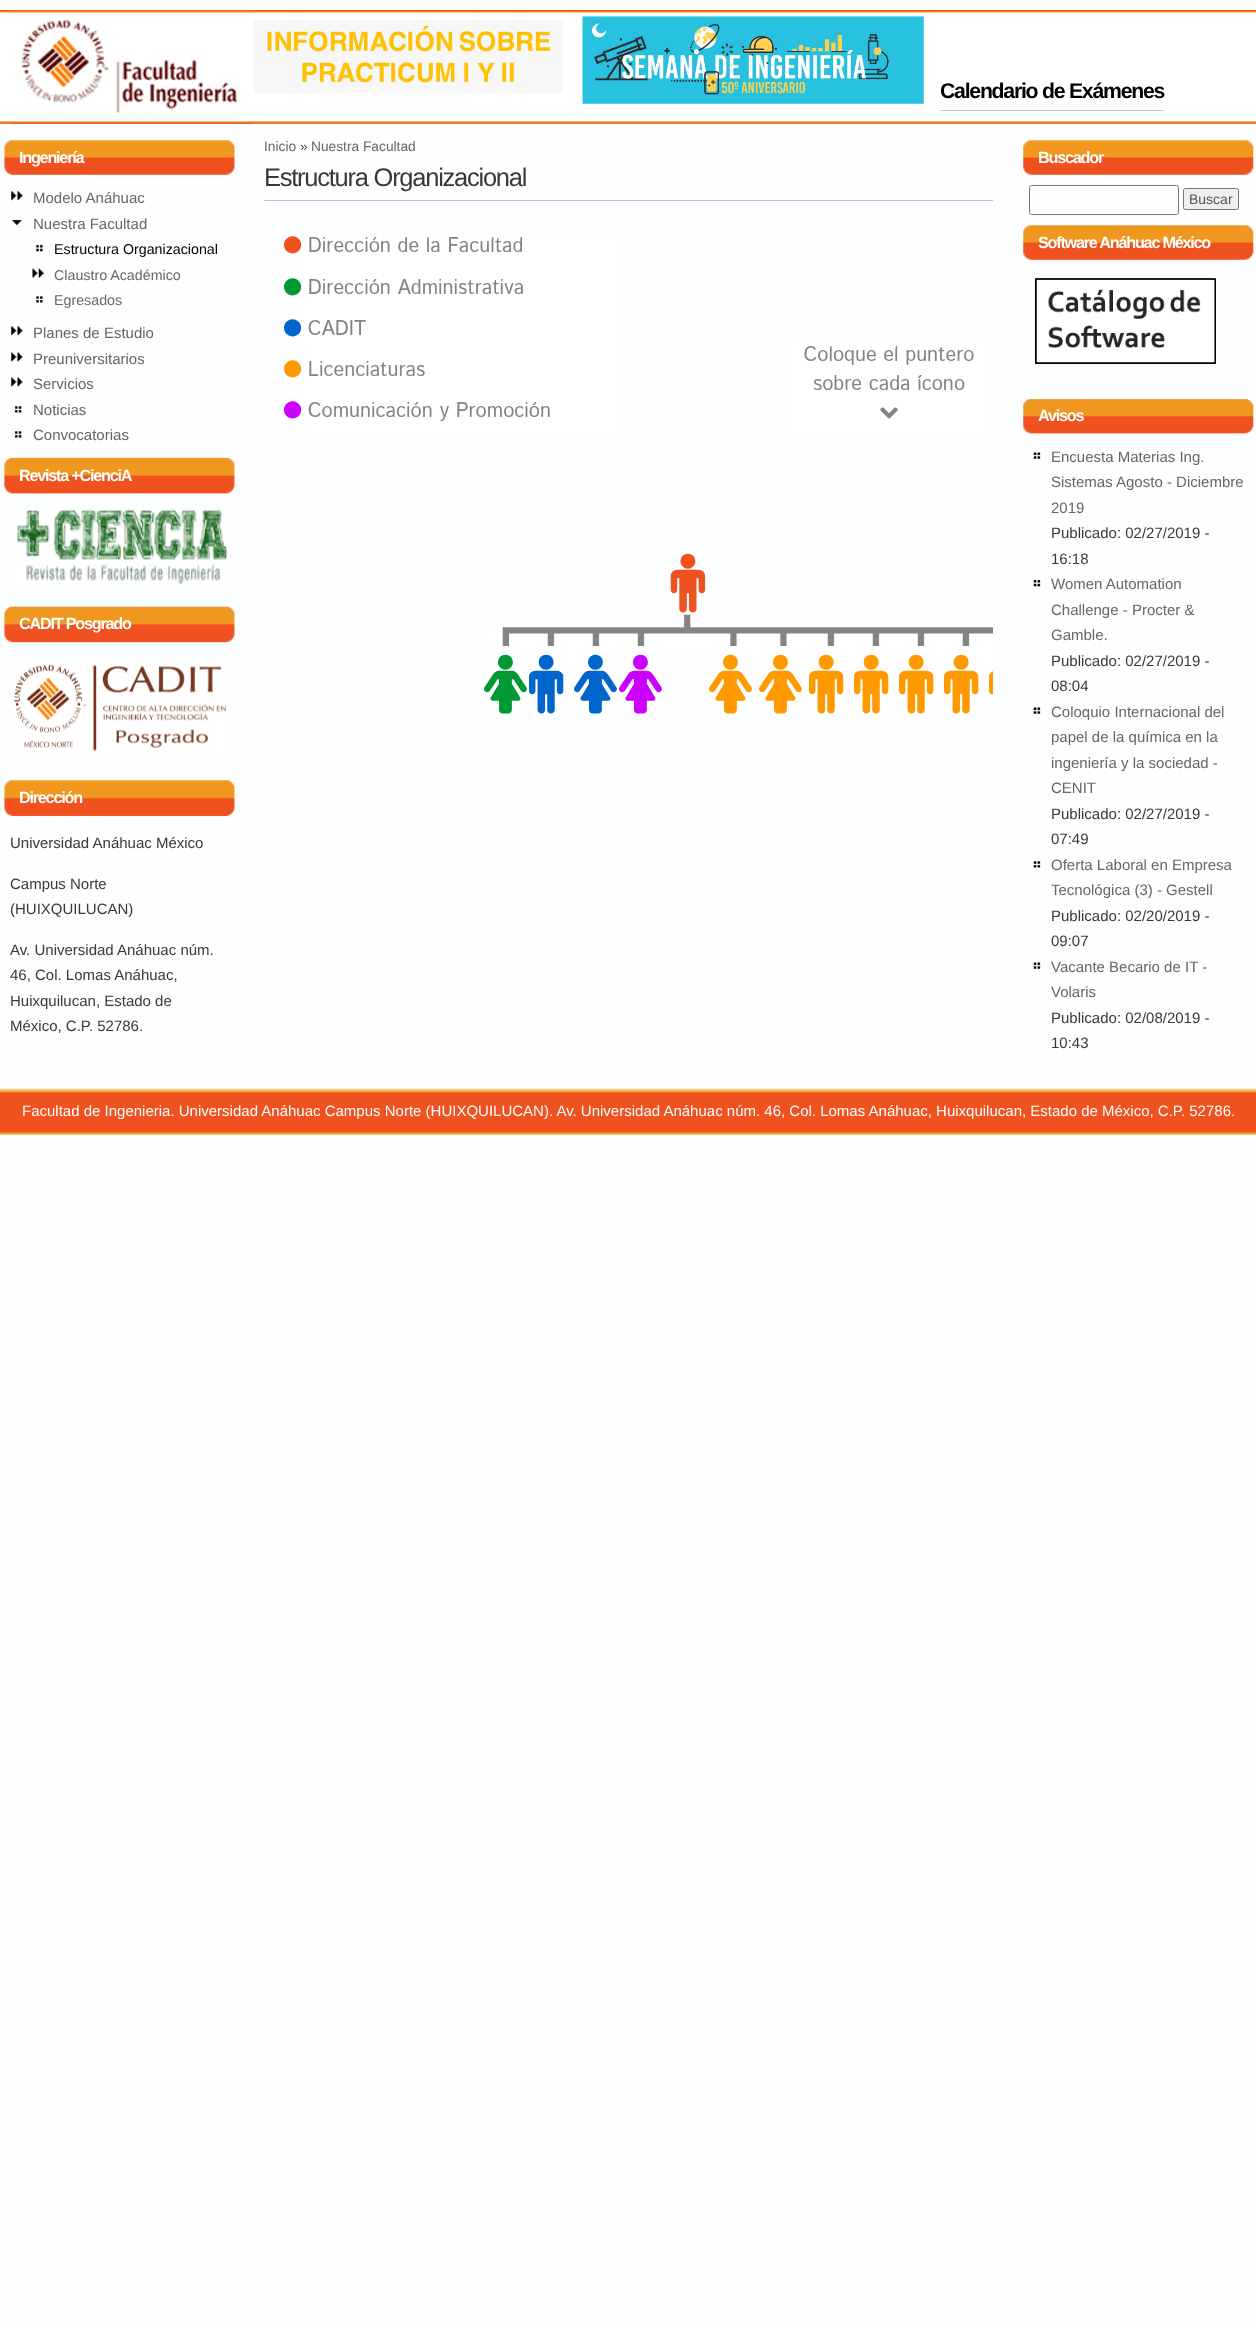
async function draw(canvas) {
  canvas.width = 1256;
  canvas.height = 2326;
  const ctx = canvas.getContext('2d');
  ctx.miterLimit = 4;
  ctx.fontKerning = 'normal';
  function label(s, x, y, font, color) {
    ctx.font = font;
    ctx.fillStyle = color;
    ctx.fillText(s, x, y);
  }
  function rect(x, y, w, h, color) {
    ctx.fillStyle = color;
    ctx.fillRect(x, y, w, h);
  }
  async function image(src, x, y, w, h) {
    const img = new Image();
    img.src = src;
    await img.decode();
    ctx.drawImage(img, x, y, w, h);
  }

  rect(0, 0, 1256, 2326, '#fdfeff');
  await image('assets/img1.png', 0, 10, 1256, 114);
  await image('assets/img2.png', 12, 9, 240, 115);
  await image('assets/img3.png', 254, 20, 309, 73);
  await image('assets/img4.png', 582, 16, 342, 88);
  ctx.letterSpacing = '-1.25px';
  label('Calendario de Exámenes', 940, 98, 'bold 21.25px Liberation Sans', '#000');
  rect(940, 110, 224, 1, '#bfc4cf');
  await image('assets/img5.png', 4, 140, 231, 35);
  label('Ingeniería', 19, 163, 'bold 16.25px Liberation Sans', '#fff');
  await image('assets/img6.png', 11, 191, 12, 10);
  ctx.letterSpacing = '0px';
  label('Modelo Anáhuac', 33, 203, '15px Liberation Sans', '#666');
  await image('assets/img7.png', 12, 219, 10, 7);
  label('Nuestra Facultad', 33, 229, '15px Liberation Sans', '#666');
  await image('assets/img8.png', 36, 244, 7, 8);
  label('Estructura Organizacional', 54, 254, '14.25px Liberation Sans', '#000');
  await image('assets/img9.png', 32, 268, 12, 10);
  label('Claustro Académico', 54, 280, '14.25px Liberation Sans', '#666');
  await image('assets/img10.png', 36, 296, 7, 7);
  label('Egresados', 54, 305, '14.25px Liberation Sans', '#666');
  await image('assets/img6.png', 11, 326, 12, 10);
  label('Planes de Estudio', 33, 338, '15px Liberation Sans', '#666');
  await image('assets/img11.png', 11, 352, 12, 10);
  label('Preuniversitarios', 33, 364, '15px Liberation Sans', '#666');
  await image('assets/img11.png', 11, 377, 12, 10);
  label('Servicios', 33, 389, '15px Liberation Sans', '#666');
  await image('assets/img12.png', 14, 406, 8, 7);
  label('Noticias', 33, 415, '15px Liberation Sans', '#666');
  await image('assets/img13.png', 14, 431, 8, 7);
  label('Convocatorias', 33, 440, '15px Liberation Sans', '#666');
  await image('assets/img14.png', 4, 457, 231, 37);
  ctx.letterSpacing = '-1.25px';
  label('Revista +CienciA', 19, 481, 'bold 16.25px Liberation Sans', '#fff');
  await image('assets/img15.png', 17, 508, 211, 76);
  await image('assets/img16.png', 4, 606, 231, 37);
  label('CADIT Posgrado', 19, 629, 'bold 16.25px Liberation Sans', '#fff');
  await image('assets/img17.png', 14, 664, 212, 87);
  await image('assets/img18.png', 4, 780, 231, 37);
  label('Dirección', 19, 803, 'bold 16.25px Liberation Sans', '#fff');
  ctx.letterSpacing = '0px';
  label('Universidad Anáhuac México', 10, 848, '15px Liberation Sans', '#393939');
  label('Campus Norte', 10, 889, '15px Liberation Sans', '#393939');
  label('(HUIXQUILUCAN)', 10, 914, '15px Liberation Sans', '#393939');
  label('Av. Universidad Anáhuac núm.', 10, 955, '15px Liberation Sans', '#393939');
  label('46, Col. Lomas Anáhuac,', 10, 980, '15px Liberation Sans', '#393939');
  label('Huixquilucan, Estado de', 10, 1006, '15px Liberation Sans', '#393939');
  label('México, C.P. 52786.', 10, 1031, '15px Liberation Sans', '#393939');
  label('Inicio', 264, 151, '13.75px Liberation Sans', '#666');
  label('»', 300, 151, '13.75px Liberation Sans', '#494949');
  label('Nuestra Facultad', 311, 151, '13.75px Liberation Sans', '#666');
  rect(264, 200, 729, 1, '#bfc4cf');
  ctx.letterSpacing = '-1.25px';
  label('Estructura Organizacional', 264, 186, '25.5px Liberation Sans', '#393939');
  await image('assets/img19.png', 284, 236, 709, 478);
  await image('assets/img20.png', 1023, 140, 231, 35);
  label('Buscador', 1038, 163, 'bold 16.25px Liberation Sans', '#fff');
  ctx.beginPath();
  ctx.roundRect(1029.5, 185.5, 149, 29, 2);
  ctx.strokeStyle = '#767676';
  ctx.stroke();
  ctx.fillStyle = '#efefef';
  ctx.beginPath();
  ctx.roundRect(1183.5, 188.5, 55, 21, 2);
  ctx.fill();
  ctx.stroke();
  ctx.letterSpacing = '0px';
  label('Buscar', 1189, 204, '14px Liberation Sans', '#555');
  await image('assets/img20.png', 1023, 225, 231, 35);
  ctx.letterSpacing = '-1.25px';
  label('Software Anáhuac México', 1038, 248, 'bold 16.25px Liberation Sans', '#fff');
  await image('assets/img21.png', 1035, 278, 181, 86);
  await image('assets/img22.png', 1023, 399, 231, 35);
  label('Avisos', 1038, 421, 'bold 16.25px Liberation Sans', '#fff');
  await image('assets/img23.png', 1033, 452, 8, 7);
  ctx.letterSpacing = '0px';
  label('Encuesta Materias Ing.', 1051, 462, '15px Liberation Sans', '#666');
  label('Sistemas Agosto - Diciembre', 1051, 487, '15px Liberation Sans', '#666');
  label('2019', 1051, 513, '15px Liberation Sans', '#666');
  label('Publicado: 02/27/2019 -', 1051, 538, '15px Liberation Sans', '#393939');
  label('16:18', 1051, 564, '15px Liberation Sans', '#393939');
  await image('assets/img24.png', 1033, 579, 8, 8);
  label('Women Automation', 1051, 589, '15px Liberation Sans', '#666');
  label('Challenge - Procter &', 1051, 615, '15px Liberation Sans', '#666');
  label('Gamble.', 1051, 640, '15px Liberation Sans', '#666');
  label('Publicado: 02/27/2019 -', 1051, 666, '15px Liberation Sans', '#393939');
  label('08:04', 1051, 691, '15px Liberation Sans', '#393939');
  await image('assets/img23.png', 1033, 707, 8, 7);
  label('Coloquio Internacional del', 1051, 717, '15px Liberation Sans', '#666');
  label('papel de la química en la', 1051, 742, '15px Liberation Sans', '#666');
  label('ingeniería y la sociedad -', 1051, 768, '15px Liberation Sans', '#666');
  label('CENIT', 1051, 793, '15px Liberation Sans', '#666');
  label('Publicado: 02/27/2019 -', 1051, 819, '15px Liberation Sans', '#393939');
  label('07:49', 1051, 844, '15px Liberation Sans', '#393939');
  await image('assets/img25.png', 1033, 861, 8, 7);
  label('Oferta Laboral en Empresa', 1051, 870, '15px Liberation Sans', '#666');
  label('Tecnológica (3) - Gestell', 1051, 895, '15px Liberation Sans', '#666');
  label('Publicado: 02/20/2019 -', 1051, 921, '15px Liberation Sans', '#393939');
  label('09:07', 1051, 946, '15px Liberation Sans', '#393939');
  await image('assets/img23.png', 1033, 962, 8, 7);
  label('Vacante Becario de IT -', 1051, 972, '15px Liberation Sans', '#666');
  label('Volaris', 1051, 997, '15px Liberation Sans', '#666');
  label('Publicado: 02/08/2019 -', 1051, 1023, '15px Liberation Sans', '#393939');
  label('10:43', 1051, 1048, '15px Liberation Sans', '#393939');
  await image('assets/img26.png', 0, 1088, 1256, 47);
  label('Facultad de Ingenieria. Universidad Anáhuac Campus Norte (HUIXQUILUCAN). Av. Universidad Anáhuac núm. 46, Col. Lomas Anáhuac, Huixquilucan, Estado de México, C.P. 52786.', 22, 1116, '15px Liberation Sans', '#fff');
}

draw(document.querySelector('canvas'));
